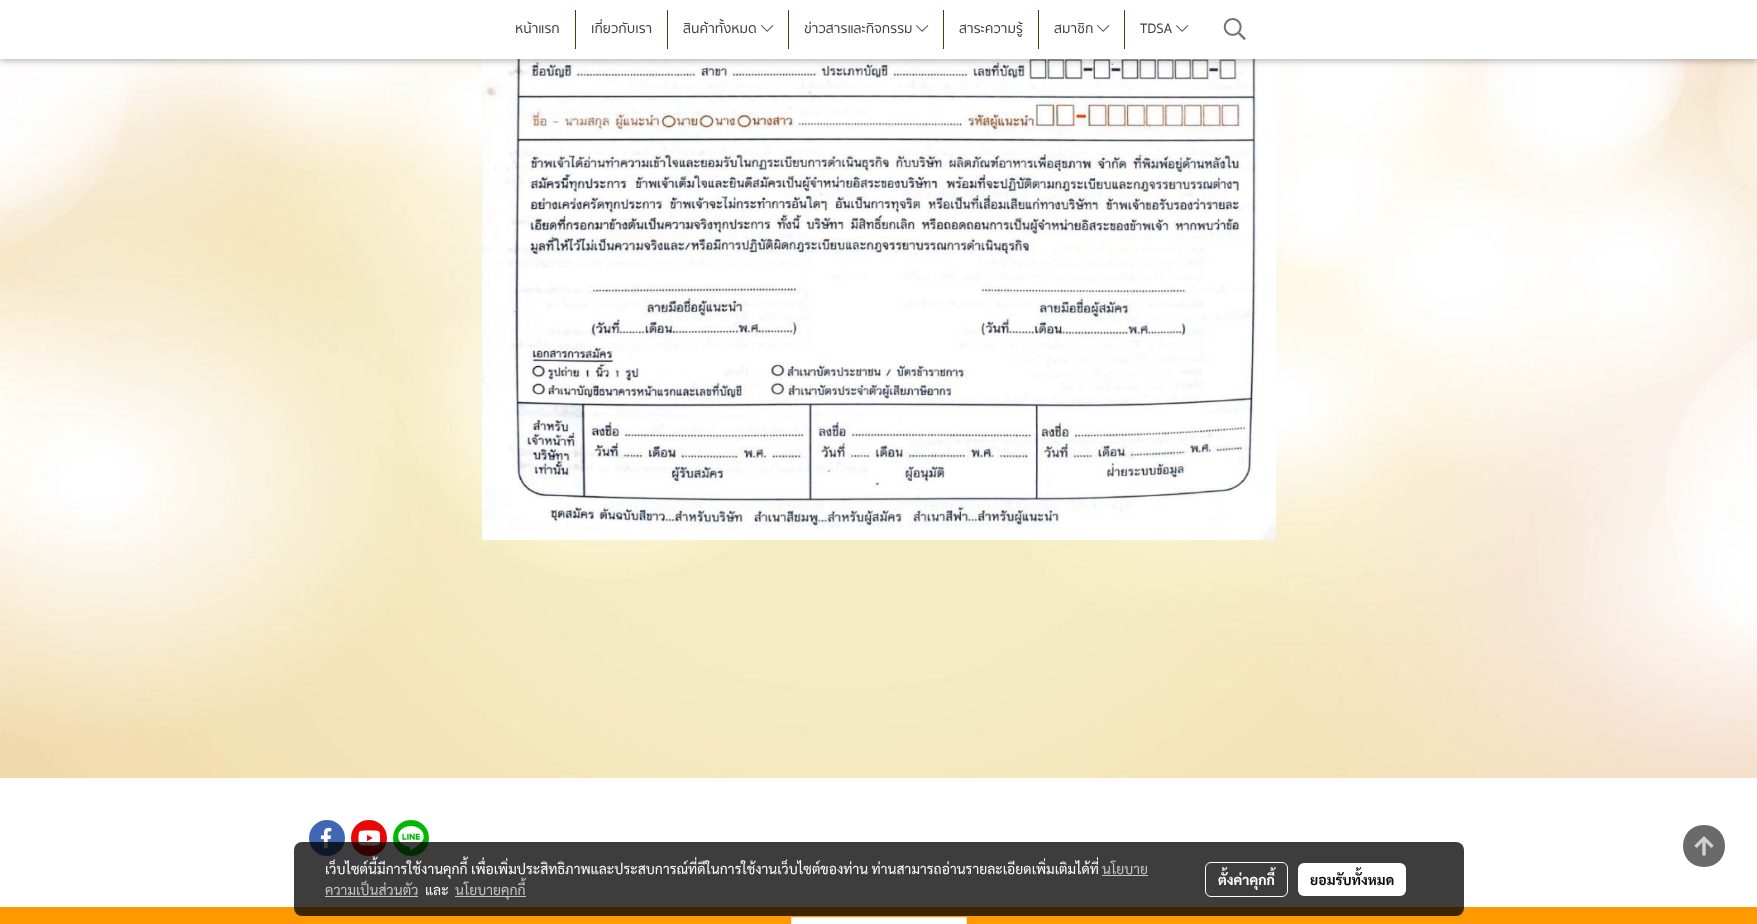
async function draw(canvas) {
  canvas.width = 1757;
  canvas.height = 924;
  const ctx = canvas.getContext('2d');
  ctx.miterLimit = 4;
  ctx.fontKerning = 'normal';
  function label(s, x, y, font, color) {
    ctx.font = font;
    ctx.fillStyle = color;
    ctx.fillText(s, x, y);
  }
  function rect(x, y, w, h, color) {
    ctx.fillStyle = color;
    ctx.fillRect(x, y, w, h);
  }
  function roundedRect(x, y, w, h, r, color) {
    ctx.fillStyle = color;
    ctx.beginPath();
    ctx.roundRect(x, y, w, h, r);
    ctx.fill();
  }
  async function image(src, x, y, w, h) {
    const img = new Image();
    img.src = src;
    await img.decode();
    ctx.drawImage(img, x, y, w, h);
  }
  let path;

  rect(0, 0, 1757, 924, '#fff');
  await image('assets/img3.png', 0, 59, 1757, 719);
  await image('assets/img4.png', 482, 59, 794, 481);
  ctx.fillStyle = '#0000001f';
  ctx.filter = 'blur(5px)';
  ctx.beginPath();
  ctx.rect(0, 2, 1757, 59);
  ctx.fill();
  ctx.filter = 'none';
  ctx.fillStyle = '#00000029';
  ctx.filter = 'blur(2.5px)';
  ctx.beginPath();
  ctx.rect(0, 2, 1757, 59);
  ctx.fill();
  ctx.filter = 'none';
  rect(0, 0, 1757, 59, '#fff');
  rect(575, 10, 1, 39, '#274e13');
  label('หน้าแรก', 515, 33, '500 14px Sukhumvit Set', '#434343');
  rect(667, 10, 1, 39, '#274e13');
  label('เกี่ยวกับเรา', 591, 33, '500 14px Sukhumvit Set', '#434343');
  rect(788, 10, 1, 39, '#274e13');
  label('สินค้าทั้งหมด', 683, 33, '500 14px Sukhumvit Set', '#434343');
  await image('assets/img1.png', 761, 25, 13, 7);
  rect(943, 10, 1, 39, '#274e13');
  label('ข่าวสารและกิจกรรม', 804, 33, '500 14px Sukhumvit Set', '#434343');
  await image('assets/img1.png', 916, 25, 13, 7);
  rect(1038, 10, 1, 39, '#274e13');
  label('สาระความรู้', 959, 33, '500 14px Sukhumvit Set', '#434343');
  rect(1124, 10, 1, 39, '#274e13');
  label('สมาชิก', 1054, 33, '500 14px Sukhumvit Set', '#434343');
  await image('assets/img1.png', 1097, 25, 13, 7);
  label('TDSA', 1140, 33, '500 14px Sukhumvit Set', '#434343');
  await image('assets/img1.png', 1176, 25, 13, 7);
  await image('assets/img2.png', 1223, 18, 23, 22);
  ctx.fillStyle = '#4267b2';
  ctx.beginPath();
  ctx.arc(327, 838, 18, 0, 2 * Math.PI);
  ctx.fill();
  await image('assets/img5.png', 320, 827, 12, 22);
  ctx.fillStyle = '#eb0808';
  ctx.beginPath();
  ctx.arc(369, 838, 18, 0, 2 * Math.PI);
  ctx.fill();
  await image('assets/img6.png', 358, 830, 23, 16);
  ctx.fillStyle = '#00b800';
  ctx.beginPath();
  ctx.arc(411, 838, 18, 0, 2 * Math.PI);
  ctx.fill();
  await image('assets/img7.png', 393, 820, 36, 36);
  rect(0, 907, 1757, 17, '#f90');
  ctx.fillStyle = '#fff';
  ctx.beginPath();
  ctx.rect(791.5, 917.5, 175, 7);
  ctx.fill();
  ctx.strokeStyle = '#e5e5e5';
  ctx.stroke();
  ctx.fillStyle = '#6b6a6a';
  path = new Path2D('M1704 825C1676 825 1676 867 1704 867C1732 867 1732 825 1704 825Z');
  ctx.fill(path);
  await image('assets/img8.png', 1694, 836, 20, 20);
  roundedRect(294, 842, 1170, 74, 8, '#000000c2');
  label('เว็บไซต์นี้มีการใช้งานคุกกี้ เพื่อเพิ่มประสิทธิภาพและประสบการณ์ที่ดีในการใช้งานเว็บไซต์ของท่าน ท่านสามารถอ่านรายละเอียดเพิ่มเติมได้ที่', 325, 874, '14px Sarabun', '#fff');
  label('นโยบาย', 1102, 874, '14px Sarabun', '#c5c5c5');
  rect(1102, 875, 46, 1, '#c5c5c5');
  label('ความเป็นส่วนตัว', 325, 895, '14px Sarabun', '#c5c5c5');
  rect(325, 896, 93, 1, '#c5c5c5');
  label('และ', 425, 895, '14px Sarabun', '#fff');
  rect(455, 896, 71, 1, '#c5c5c5');
  label('นโยบายคุกกี้', 455, 895, '14px Sarabun', '#c5c5c5');
  ctx.beginPath();
  ctx.roundRect(1205.5, 862.5, 82, 34, 5.5);
  ctx.strokeStyle = '#fff';
  ctx.stroke();
  label('ตั้งค่าคุกกี้', 1218, 885, 'bold 14px Sarabun', '#fff');
  roundedRect(1298, 863, 108, 33, 6, '#fff');
  label('ยอมรับทั้งหมด', 1310, 885, 'bold 14px Sarabun', '#0d0d0d');
}

draw(document.querySelector('canvas'));
